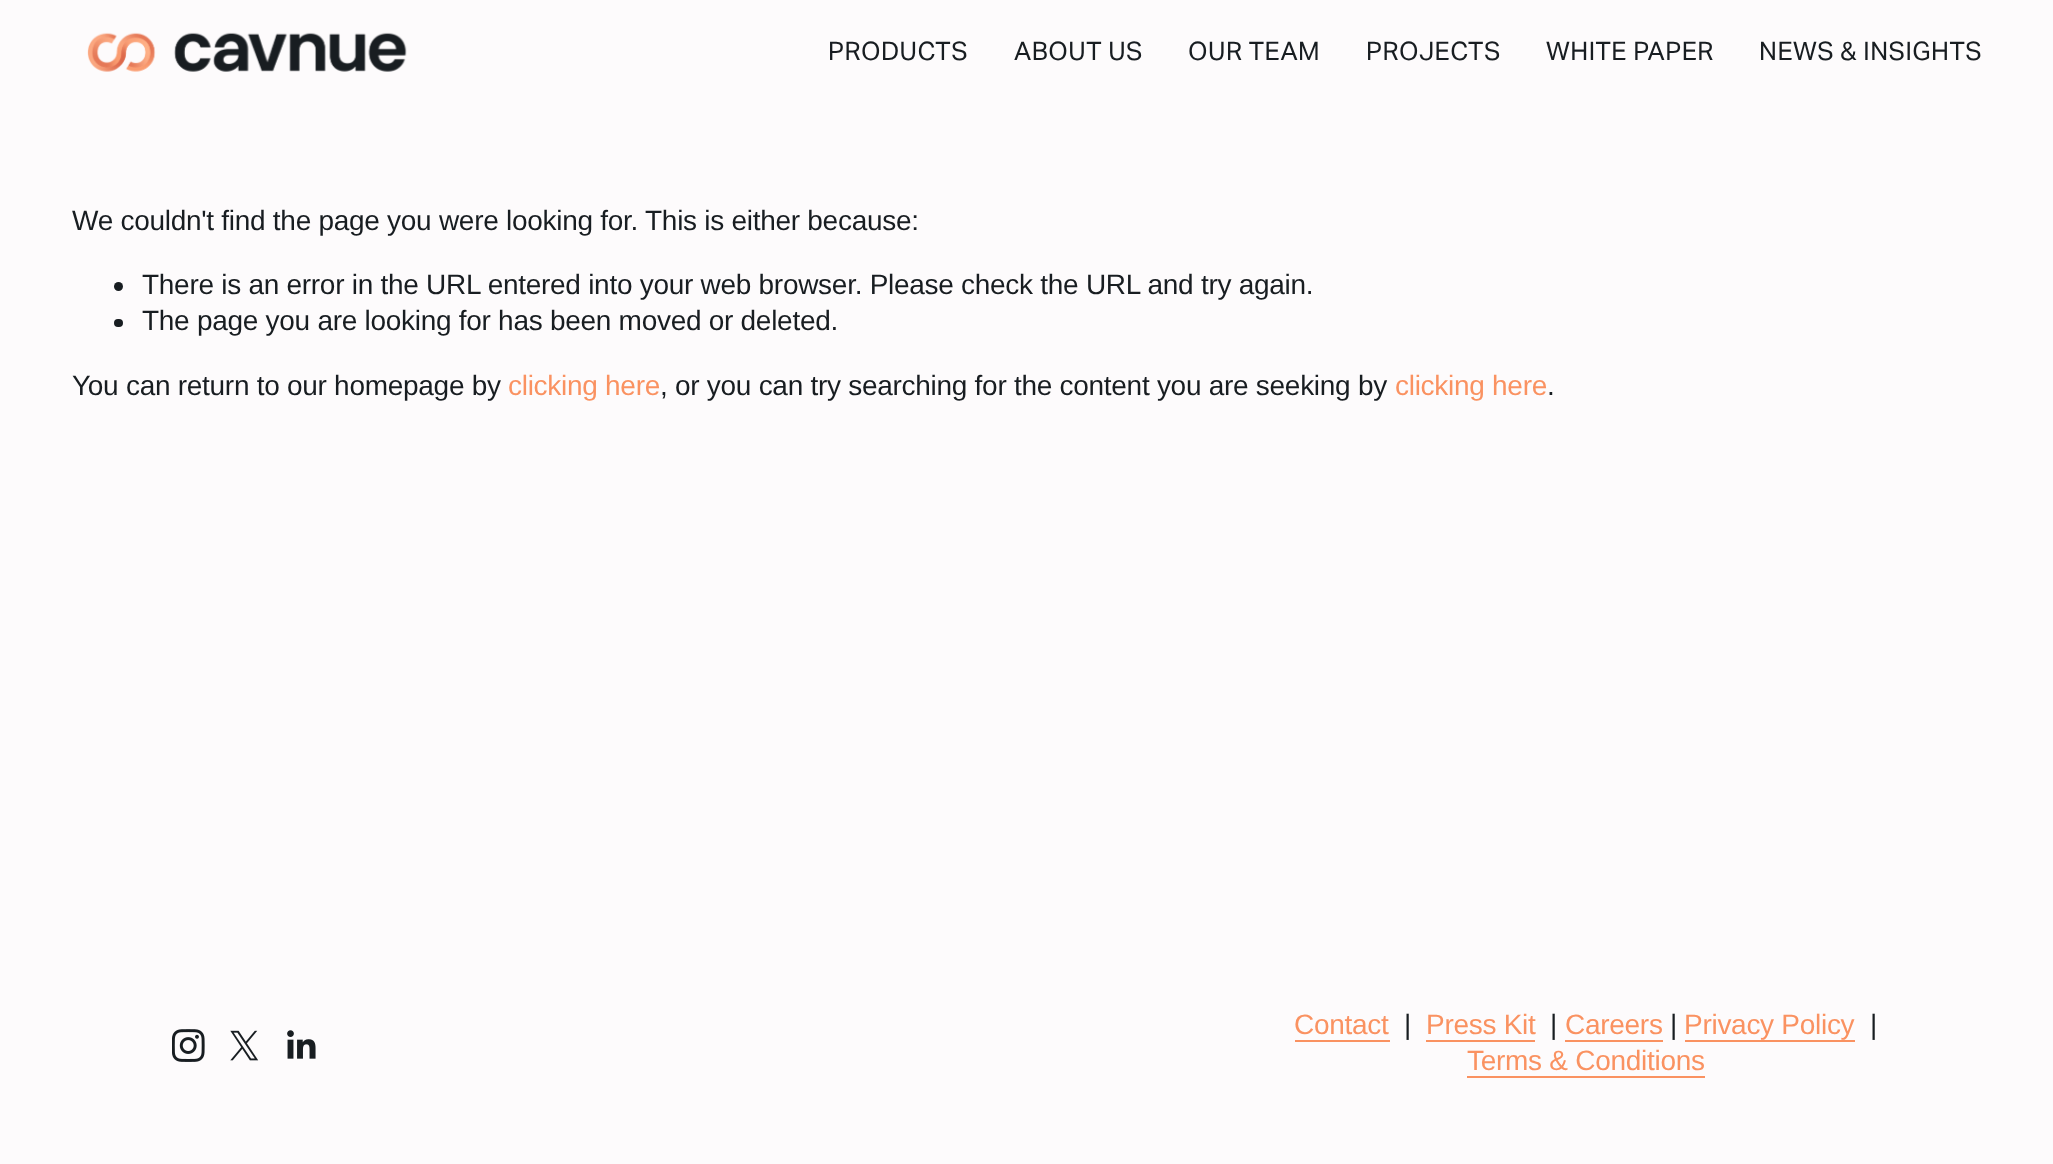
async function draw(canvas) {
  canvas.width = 2053;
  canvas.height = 1164;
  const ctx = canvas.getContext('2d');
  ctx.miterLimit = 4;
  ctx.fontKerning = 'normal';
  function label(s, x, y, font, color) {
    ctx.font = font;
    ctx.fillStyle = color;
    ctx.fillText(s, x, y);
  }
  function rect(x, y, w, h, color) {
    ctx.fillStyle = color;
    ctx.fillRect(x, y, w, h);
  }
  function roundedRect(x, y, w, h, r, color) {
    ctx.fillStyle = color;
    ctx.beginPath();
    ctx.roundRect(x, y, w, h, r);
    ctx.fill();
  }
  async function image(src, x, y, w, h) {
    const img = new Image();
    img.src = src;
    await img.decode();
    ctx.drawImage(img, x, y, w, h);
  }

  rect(0, 0, 2053, 1164, '#fdfbfc');
  await image('assets/img1.png', 87, 32, 320, 40);
  ctx.letterSpacing = '0.5px';
  label('PRODUCTS', 828, 60, '25.5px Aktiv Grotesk', '#181d21');
  label('ABOUT US', 1014, 60, '25.5px Aktiv Grotesk', '#181d21');
  label('OUR TEAM', 1188, 60, '25.5px Aktiv Grotesk', '#181d21');
  label('PROJECTS', 1366, 60, '25.5px Aktiv Grotesk', '#181d21');
  label('WHITE PAPER', 1546, 60, '25.5px Aktiv Grotesk', '#181d21');
  label('NEWS & INSIGHTS', 1759, 60, '25.5px Aktiv Grotesk', '#181d21');
  ctx.letterSpacing = '-0.28px';
  label('We couldn\'t find the page you were looking for. This is either because:', 72, 230, '28px Liberation Sans', '#181d21');
  ctx.beginPath();
  ctx.arc(118.5, 286.5, 4.5, 0, 2 * Math.PI);
  ctx.fill();
  label('There is an error in the URL entered into your web browser. Please check the URL and try again.', 142, 294, '28px Liberation Sans', '#181d21');
  roundedRect(114, 319, 9, 8, 4, '#181d21');
  label('The page you are looking for has been moved or deleted.', 142, 330, '28px Liberation Sans', '#181d21');
  label('You can return to our homepage by', 72, 395, '28px Liberation Sans', '#181d21');
  label('clicking here', 508, 395, '28px Liberation Sans', '#fa9261');
  label(', or you can try searching for the content you are seeking by', 660, 395, '28px Liberation Sans', '#181d21');
  label('clicking here', 1395, 395, '28px Liberation Sans', '#fa9261');
  label('.', 1547, 395, '28px Liberation Sans', '#181d21');
  await image('assets/img2.png', 172, 1029, 33, 33);
  await image('assets/img3.png', 230, 1030, 29, 31);
  await image('assets/img4.png', 287, 1030, 29, 29);
  label('Contact', 1294, 1034, '28px Liberation Sans', '#fa9261');
  rect(1295, 1040, 95, 2, '#fa9261');
  label('|', 1404, 1034, '28px Liberation Sans', '#181d21');
  label('Press Kit', 1426, 1034, '28px Liberation Sans', '#fa9261');
  rect(1426, 1040, 109, 2, '#fa9261');
  label('|', 1550, 1034, '28px Liberation Sans', '#181d21');
  label('Careers', 1565, 1034, '28px Liberation Sans', '#fa9261');
  rect(1565, 1040, 98, 2, '#fa9261');
  label('|', 1670, 1034, '28px Liberation Sans', '#181d21');
  label('Privacy Policy', 1684, 1034, '28px Liberation Sans', '#fa9261');
  rect(1685, 1040, 170, 2, '#fa9261');
  label('|', 1870, 1034, '28px Liberation Sans', '#181d21');
  label('Terms & Conditions', 1467, 1070, '28px Liberation Sans', '#fa9261');
  rect(1467, 1076, 238, 2, '#fa9261');
}

draw(document.querySelector('canvas'));
